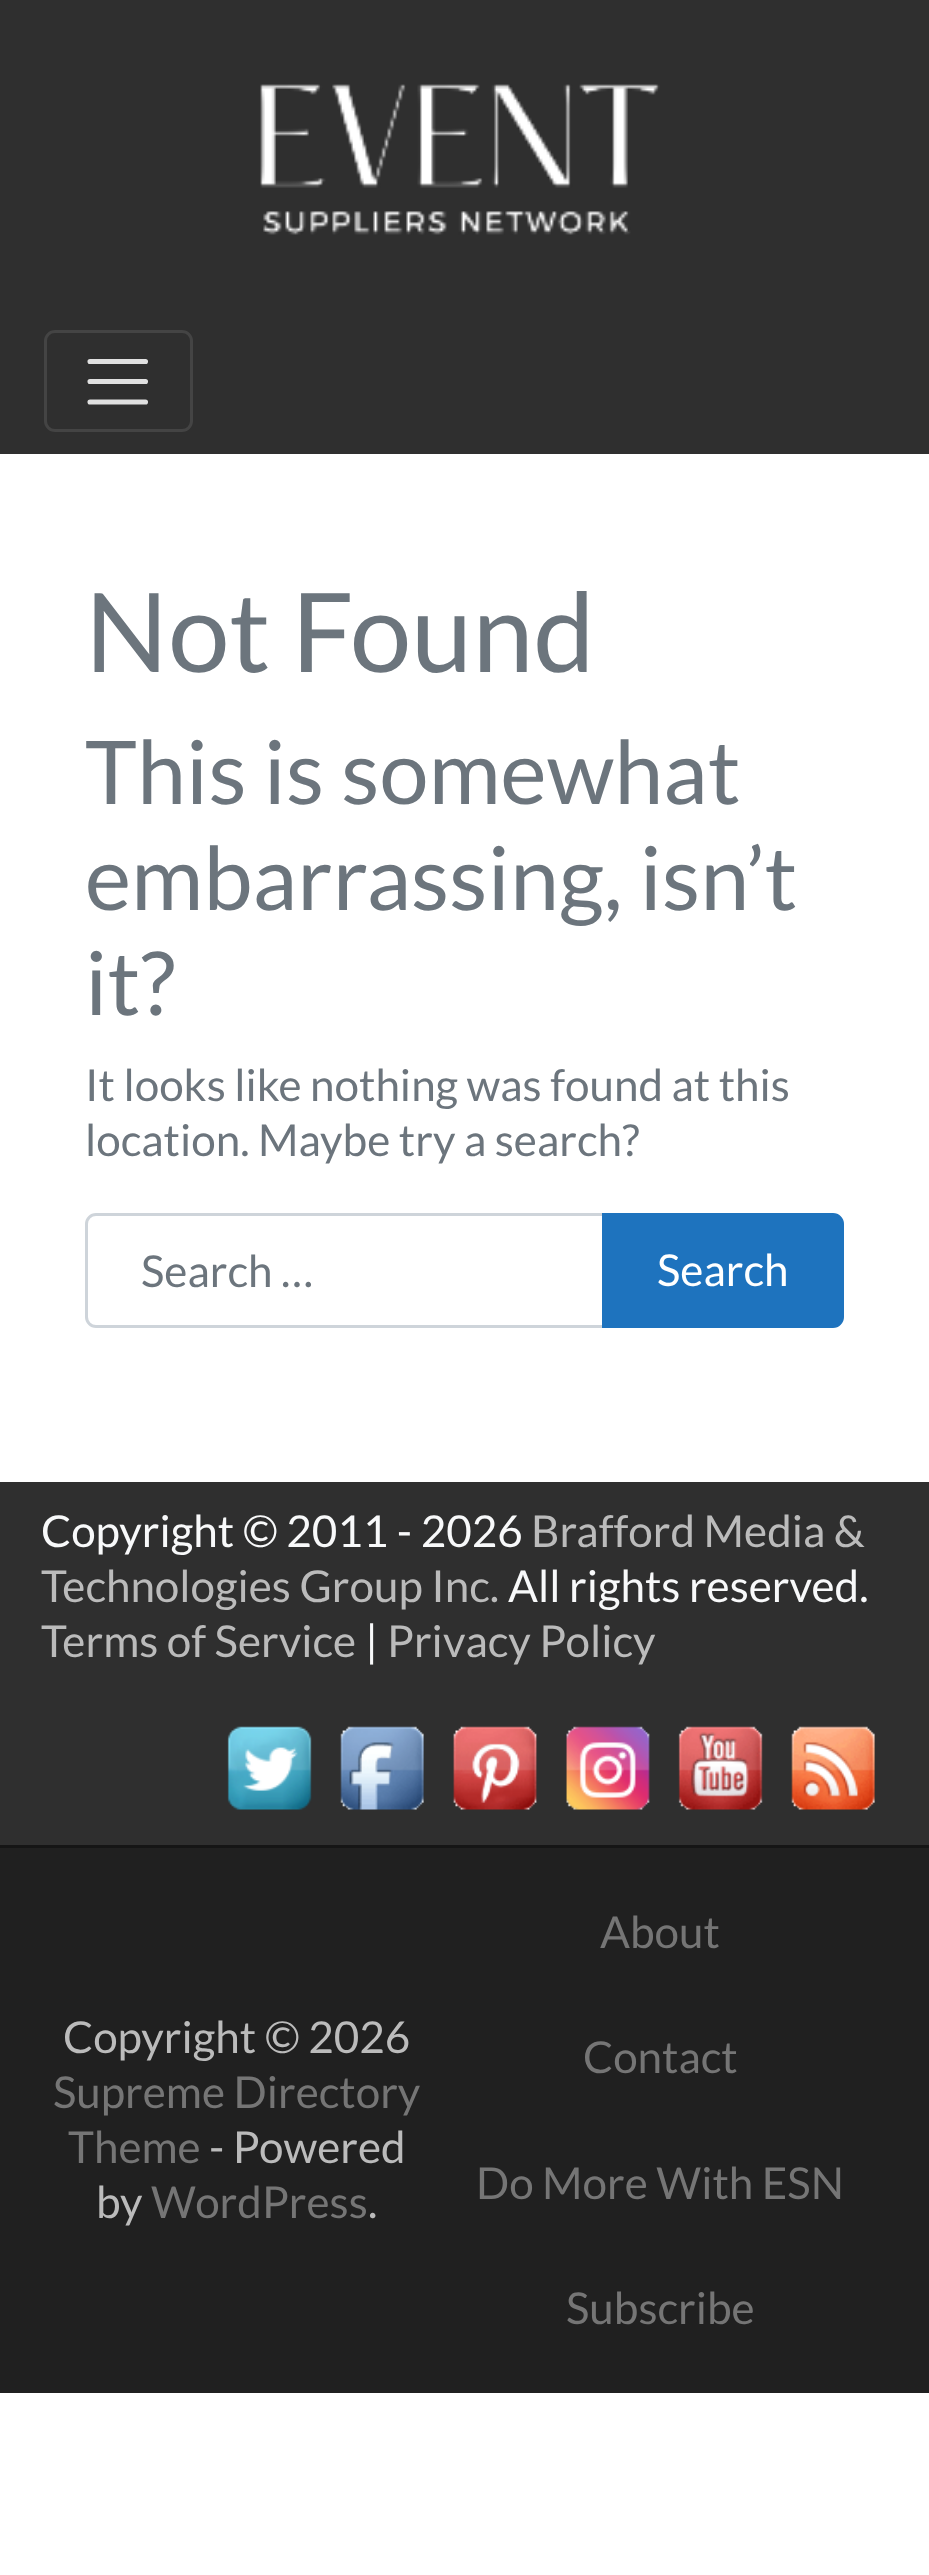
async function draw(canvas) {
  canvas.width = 929;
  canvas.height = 2575;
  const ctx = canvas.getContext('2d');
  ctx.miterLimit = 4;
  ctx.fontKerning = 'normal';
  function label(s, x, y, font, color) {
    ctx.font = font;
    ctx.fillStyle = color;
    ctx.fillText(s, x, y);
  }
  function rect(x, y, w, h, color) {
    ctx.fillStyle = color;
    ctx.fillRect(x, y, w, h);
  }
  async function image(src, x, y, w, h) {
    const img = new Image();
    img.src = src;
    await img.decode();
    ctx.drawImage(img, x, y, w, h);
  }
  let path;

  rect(0, 0, 929, 2575, '#fff');
  rect(0, 0, 929, 454, '#2f2f2f');
  await image('assets/img1.png', 260, 84, 400, 151);
  ctx.beginPath();
  ctx.roundRect(45.5, 331.5, 146, 99, 9.5);
  ctx.strokeStyle = '#444';
  ctx.lineWidth = 3;
  ctx.stroke();
  path = new Path2D('M90 361.5H145.5M90 381.5H145.5M90 402H145.5');
  ctx.strokeStyle = '#e0e0e0';
  ctx.lineWidth = 5.1;
  ctx.lineCap = 'round';
  ctx.stroke(path);
  label('Not Found', 85, 672, '110px Lato', '#6c757d');
  label('This is somewhat', 85, 804, '88px Lato', '#6c757d');
  label('embarrassing, isn’t', 85, 910, '88px Lato', '#6c757d');
  label('it?', 85, 1015, '88px Lato', '#6c757d');
  label('It looks like nothing was found at this', 85, 1101, '44px Lato', '#6c757d');
  label('location. Maybe try a search?', 85, 1156, '44px Lato', '#6c757d');
  ctx.beginPath();
  ctx.roundRect(86.5, 1214.5, 517, 112, [9.5, 0, 0, 9.5]);
  ctx.strokeStyle = '#ced4da';
  ctx.lineWidth = 3;
  ctx.stroke();
  label('Search …', 141, 1287, '44px Lato', '#6c757d');
  ctx.fillStyle = '#1e73be';
  ctx.beginPath();
  ctx.roundRect(603.5, 1214.5, 239, 112, [0, 9.5, 9.5, 0]);
  ctx.fill();
  ctx.strokeStyle = '#1e73be';
  ctx.stroke();
  label('Search', 657, 1286, '44px Lato', '#fff');
  rect(0, 1482, 929, 363, '#2f2f2f');
  label('Copyright © 2011 - 2026', 41, 1547, '44px Lato', '#f8f9fa');
  label('Brafford Media &', 531, 1547, '44px Lato', '#bbb');
  label('Technologies Group Inc.', 41, 1602, '44px Lato', '#bbb');
  label('All rights reserved.', 508, 1602, '44px Lato', '#f8f9fa');
  label('Terms of Service', 41, 1657, '44px Lato', '#bbb');
  label('|', 365, 1657, '44px Lato', '#f8f9fa');
  label('Privacy Policy', 387, 1657, '44px Lato', '#bbb');
  await image('assets/img2.png', 227, 1726, 85, 84);
  await image('assets/img3.png', 340, 1726, 84, 84);
  await image('assets/img4.png', 453, 1726, 84, 84);
  await image('assets/img5.png', 566, 1726, 84, 84);
  await image('assets/img6.png', 678, 1726, 85, 84);
  await image('assets/img7.png', 791, 1726, 84, 84);
  rect(0, 1848, 929, 545, '#202020');
  rect(0, 1845, 929, 3, '#151515');
  label('Copyright © 2026', 63, 2053, '44px Lato', '#bbb');
  label('Supreme Directory', 53, 2108, '44px Lato', '#757575');
  label('Theme', 68, 2163, '44px Lato', '#757575');
  label('- Powered', 209, 2163, '44px Lato', '#bbb');
  label('by', 96, 2218, '44px Lato', '#bbb');
  label('WordPress', 151, 2218, '44px Lato', '#757575');
  label('.', 368, 2218, '44px Lato', '#bbb');
  label('About', 600, 1948, '44px Lato', '#757575');
  label('Contact', 583, 2073, '44px Lato', '#757575');
  label('Do More With ESN', 476, 2199, '44px Lato', '#757575');
  label('Subscribe', 566, 2324, '44px Lato', '#757575');
}

draw(document.querySelector('canvas'));
